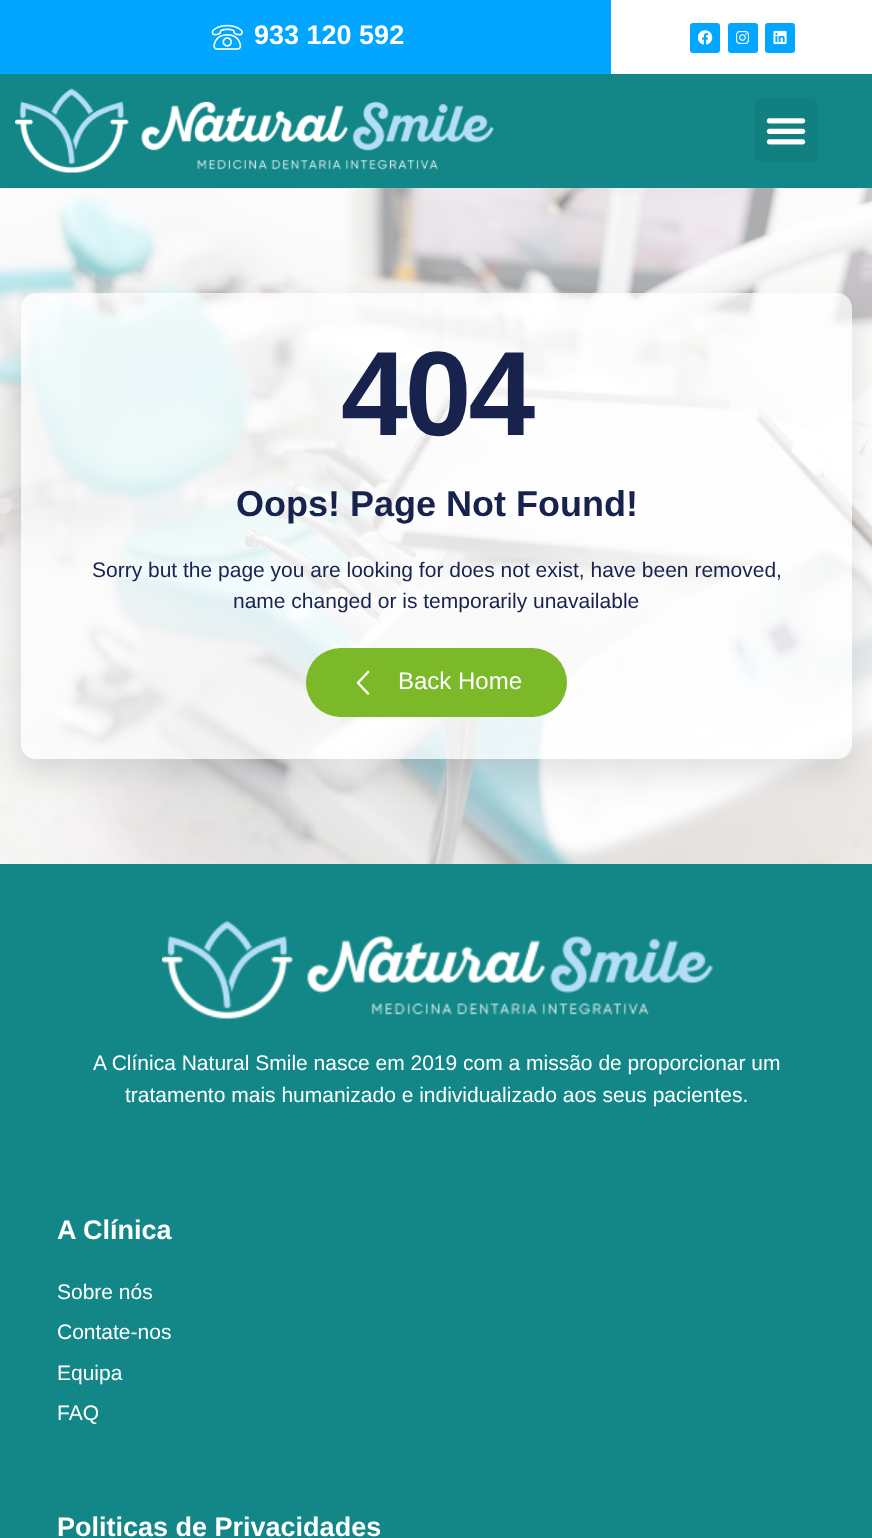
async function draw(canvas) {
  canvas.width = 872;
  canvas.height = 1538;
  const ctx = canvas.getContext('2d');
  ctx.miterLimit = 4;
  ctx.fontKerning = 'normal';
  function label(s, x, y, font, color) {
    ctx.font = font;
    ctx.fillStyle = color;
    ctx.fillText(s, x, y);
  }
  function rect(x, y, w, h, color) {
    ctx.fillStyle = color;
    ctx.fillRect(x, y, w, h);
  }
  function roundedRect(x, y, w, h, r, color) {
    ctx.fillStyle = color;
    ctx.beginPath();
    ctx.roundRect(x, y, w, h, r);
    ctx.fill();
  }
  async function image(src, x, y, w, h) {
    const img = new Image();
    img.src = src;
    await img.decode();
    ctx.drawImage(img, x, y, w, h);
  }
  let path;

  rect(0, 0, 872, 1538, '#fff');
  rect(0, 0, 611, 74, '#00a6ff');
  await image('assets/img1.png', 211, 24, 32, 26);
  label('933 120 592', 254, 44, 'bold 27px Liberation Sans', '#fff');
  roundedRect(690, 23, 30, 30, 3, '#00a6ff');
  await image('assets/img2.png', 698, 30, 15, 15);
  roundedRect(728, 23, 30, 30, 3, '#00a6ff');
  await image('assets/img3.png', 736, 31, 14, 13);
  roundedRect(765, 23, 30, 30, 3, '#00a6ff');
  await image('assets/img4.png', 773, 30, 14, 15);
  rect(0, 74, 872, 114, '#138788');
  await image('assets/img5.png', 15, 88, 479, 85);
  roundedRect(755, 99, 63, 63, 5, '#128081');
  await image('assets/img6.png', 766, 118, 40, 27);
  await image('assets/img7.png', 0, 188, 872, 676);
  ctx.save();
  path = new Path2D('M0 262H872V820H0ZM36 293H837C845.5 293 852 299.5 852 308V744C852 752.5 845.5 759 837 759H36C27.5 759 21 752.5 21 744V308C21 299.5 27.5 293 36 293Z');
  ctx.clip(path, 'evenodd');
  ctx.fillStyle = '#0000001a';
  ctx.filter = 'blur(15px)';
  ctx.beginPath();
  ctx.roundRect(21, 308, 831, 466, 15);
  ctx.fill();
  ctx.filter = 'none';
  ctx.restore();
  roundedRect(21, 293, 831, 466, 15, '#ffffffb3');
  ctx.letterSpacing = '-3px';
  label('404', 341, 435, 'bold 120px Liberation Sans', '#17224d');
  ctx.letterSpacing = '0px';
  label('Oops! Page Not Found!', 236, 516, 'bold 36px Liberation Sans', '#17224d');
  label('Sorry but the page you are looking for does not exist, have been removed,', 92, 577, '21px Liberation Sans', '#17224d');
  label('name changed or is temporarily unavailable', 233, 608, '21px Liberation Sans', '#17224d');
  roundedRect(306, 648, 261, 69, 34.5, '#7cb928');
  await image('assets/img8.png', 356, 670, 14, 25);
  label('Back Home', 398, 689, '24px Liberation Sans', '#fff');
  rect(0, 864, 872, 674, '#138788');
  await image('assets/img9.png', 162, 921, 551, 98);
  label('A Clínica Natural Smile nasce em 2019 com a missão de proporcionar um', 93, 1070, '21px Liberation Sans', '#fff');
  label('tratamento mais humanizado e individualizado aos seus pacientes.', 125, 1102, '21px Liberation Sans', '#fff');
  label('A Clínica', 57, 1239, 'bold 27px Liberation Sans', '#fff');
  label('Sobre nós', 57, 1299, '21px Liberation Sans', '#fff');
  label('Contate-nos', 57, 1339, '21px Liberation Sans', '#fff');
  label('Equipa', 57, 1380, '21px Liberation Sans', '#fff');
  label('FAQ', 57, 1420, '21px Liberation Sans', '#fff');
  label('Politicas de Privacidades', 57, 1536, 'bold 27px Liberation Sans', '#fff');
}

draw(document.querySelector('canvas'));
